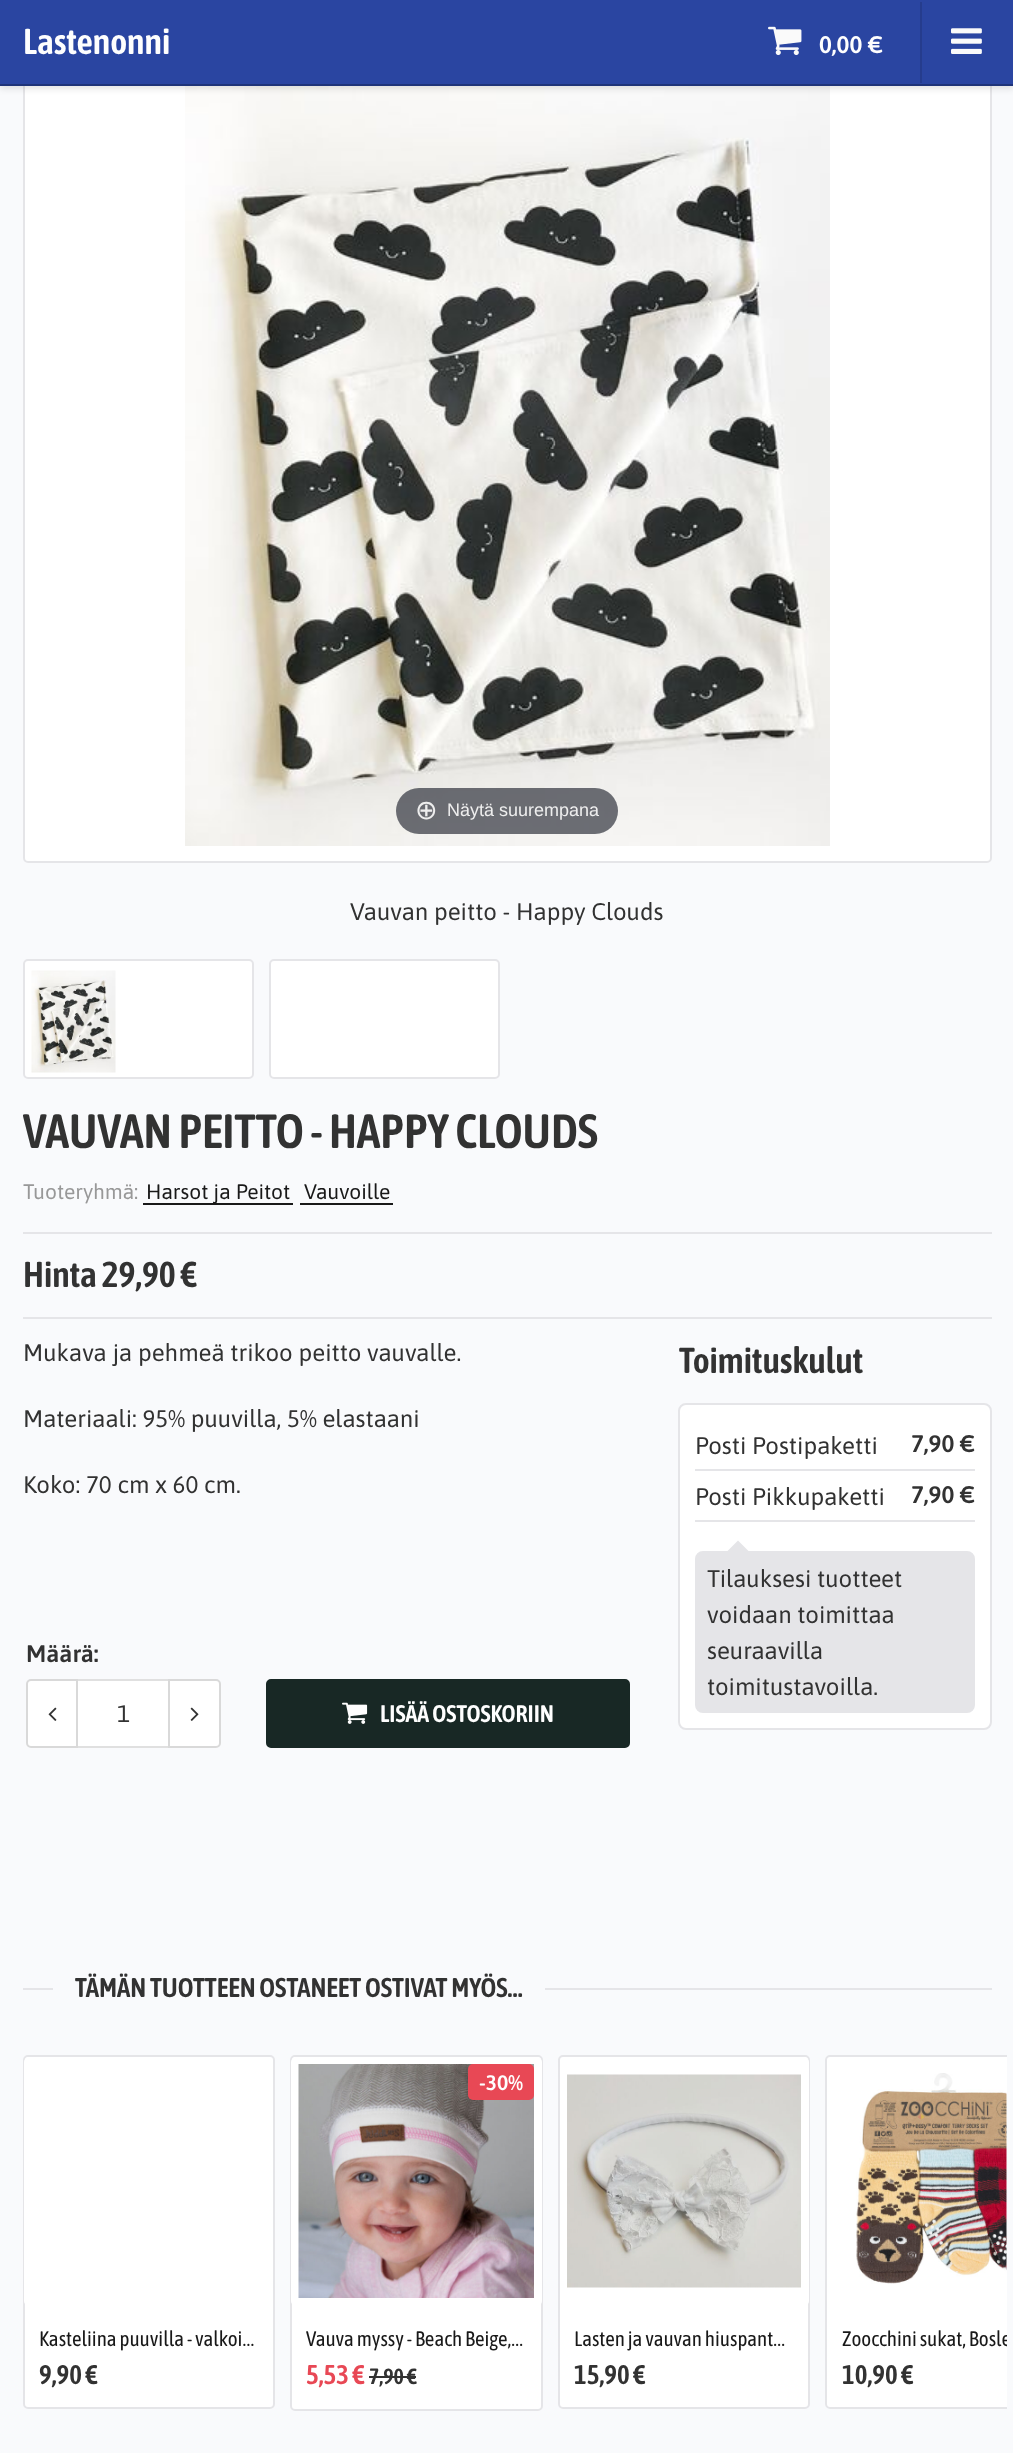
async function draw(canvas) {
  canvas.width = 1013;
  canvas.height = 2453;
  const ctx = canvas.getContext('2d');
  ctx.miterLimit = 4;
  ctx.fontKerning = 'normal';
  function label(s, x, y, font, color) {
    ctx.font = font;
    ctx.fillStyle = color;
    ctx.fillText(s, x, y);
  }
  function rect(x, y, w, h, color) {
    ctx.fillStyle = color;
    ctx.fillRect(x, y, w, h);
  }
  function roundedRect(x, y, w, h, r, color) {
    ctx.fillStyle = color;
    ctx.beginPath();
    ctx.roundRect(x, y, w, h, r);
    ctx.fill();
  }
  async function image(src, x, y, w, h) {
    const img = new Image();
    img.src = src;
    await img.decode();
    ctx.drawImage(img, x, y, w, h);
  }
  let path;

  rect(0, 0, 1013, 2453, '#f9fafc');
  ctx.fillStyle = '#fff';
  ctx.beginPath();
  ctx.roundRect(24, 51, 967, 811, 4);
  ctx.fill();
  ctx.strokeStyle = '#e5e5e8';
  ctx.lineWidth = 2;
  ctx.stroke();
  await image('assets/img3.png', 185, 86, 645, 760);
  ctx.fillStyle = '#0000001a';
  ctx.filter = 'blur(3px)';
  ctx.beginPath();
  ctx.rect(0, 5, 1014, 84);
  ctx.fill();
  ctx.filter = 'none';
  rect(0, 0, 1013, 84, '#2a45a1');
  rect(0, 84, 1013, 2, '#1f3479');
  label('Lastenonni', 23, 54, '600 36px Asap Condensed', '#fefefe');
  await image('assets/img1.png', 768, 26, 34, 30);
  label('0,00 €', 819, 53, '600 24px Asap', '#fefefe');
  rect(920, 2, 2, 81, '#253c8d');
  await image('assets/img2.png', 951, 28, 31, 26);
  roundedRect(396, 788, 222, 46, 23, '#31333db3');
  label('⊕', 415, 819, '27px DejaVu Sans', '#eee');
  label('Näytä suurempana', 447, 816, '18px Liberation Sans', '#eee');
  label('Vauvan peitto - Happy Clouds', 350, 920, '24px Asap', '#323232');
  ctx.fillStyle = '#fff';
  ctx.beginPath();
  ctx.roundRect(24, 960, 229, 118, 4);
  ctx.fill();
  ctx.stroke();
  await image('assets/img4.png', 31, 970, 85, 103);
  ctx.beginPath();
  ctx.roundRect(270, 960, 229, 118, 4);
  ctx.fill();
  ctx.stroke();
  label('VAUVAN PEITTO - HAPPY CLOUDS', 23, 1148, '600 48px Asap Condensed', '#323232');
  label('Tuoteryhmä:', 23, 1199, '21px Asap', '#989898');
  rect(143, 1203, 150, 2, '#191919');
  label('Harsot ja Peitot', 146, 1199, '21px Asap', '#191919');
  label('Vauvoille', 304, 1199, '21px Asap', '#191919');
  rect(300, 1203, 93, 2, '#191919');
  rect(23, 1232, 969, 2, '#e5e5e8');
  label('Hinta 29,90 €', 23, 1287, '600 36px Asap Condensed', '#323232');
  rect(23, 1317, 969, 2, '#e5e5e8');
  label('Mukava ja pehmeä trikoo peitto vauvalle.', 23, 1361, '24px Asap', '#323232');
  label('Materiaali: 95% puuvilla, 5% elastaani', 23, 1427, '24px Asap', '#323232');
  label('Koko: 70 cm x 60 cm.', 23, 1493, '24px Asap', '#323232');
  label('Määrä:', 26, 1662, '600 24px Asap', '#323232');
  ctx.fillStyle = '#fff';
  ctx.beginPath();
  ctx.roundRect(27, 1680, 50, 67, [4, 0, 0, 4]);
  ctx.fill();
  ctx.strokeStyle = '#d9d9d9';
  ctx.stroke();
  await image('assets/img5.png', 48, 1707, 9, 14);
  rect(78, 1681, 90, 65, '#fff');
  rect(78, 1679, 90, 2, '#e0e0e0');
  rect(78, 1746, 90, 2, '#e0e0e0');
  label('1', 117, 1722, '24px Asap', '#323232');
  ctx.fillStyle = '#fff';
  ctx.beginPath();
  ctx.roundRect(169, 1680, 51, 67, [0, 4, 4, 0]);
  ctx.fill();
  ctx.stroke();
  await image('assets/img6.png', 190, 1707, 9, 14);
  ctx.fillStyle = '#182825';
  ctx.beginPath();
  ctx.roundRect(267, 1680, 362, 67, 4);
  ctx.fill();
  ctx.strokeStyle = '#182825';
  ctx.stroke();
  await image('assets/img7.png', 342, 1702, 26, 22);
  label('LISÄÄ OSTOSKORIIN', 380, 1722, '600 24px Asap Condensed', '#fefefe');
  label('Toimituskulut', 679, 1373, '600 36px Asap Condensed', '#323232');
  ctx.fillStyle = '#fff';
  ctx.beginPath();
  ctx.roundRect(679, 1404, 312, 325, 7);
  ctx.fill();
  ctx.strokeStyle = '#e5e5e8';
  ctx.stroke();
  label('Posti Postipaketti', 695, 1454, '24px Asap', '#323232');
  rect(695, 1469, 280, 2, '#e5e5e8');
  label('7,90 €', 911, 1452, '600 24px Asap', '#323232');
  label('Posti Pikkupaketti', 695, 1505, '24px Asap', '#323232');
  rect(695, 1520, 280, 2, '#e5e5e8');
  label('7,90 €', 911, 1503, '600 24px Asap', '#323232');
  ctx.fillStyle = '#e5e5e8';
  ctx.beginPath();
  ctx.roundRect(696, 1552, 278, 160, 7);
  ctx.fill();
  ctx.stroke();
  path = new Path2D('M750 1552.5H726L738 1540.5Z');
  ctx.fill(path);
  label('Tilauksesi tuotteet', 707, 1587, '24px Asap', '#323232');
  label('voidaan toimittaa', 707, 1623, '24px Asap', '#323232');
  label('seuraavilla', 707, 1659, '24px Asap', '#323232');
  label('toimitustavoilla.', 707, 1695, '24px Asap', '#323232');
  rect(23, 1988, 30, 2, '#e5e5e8');
  label('TÄMÄN TUOTTEEN OSTANEET OSTIVAT MYÖS…', 75, 1997, '600 27px Asap Condensed', '#323232');
  rect(545, 1988, 447, 2, '#e5e5e8');
  ctx.fillStyle = '#fff';
  ctx.beginPath();
  ctx.roundRect(24, 2056, 250, 352, 4);
  ctx.fill();
  ctx.stroke();
  roundedRect(24, 2057, 249, 249, 5, '#fff');
  label('Kasteliina puuvilla - valkoi…', 39, 2346, '21px Asap Condensed', '#191919');
  label('9,90 €', 39, 2384, '600 27px Asap Condensed', '#323232');
  ctx.fillStyle = '#fff';
  ctx.beginPath();
  ctx.roundRect(291, 2056, 251, 354, 4);
  ctx.fill();
  ctx.stroke();
  roundedRect(291, 2057, 251, 249, 5, '#fff');
  await image('assets/img8.png', 298, 2064, 236, 234);
  roundedRect(468, 2064, 66, 36, 5, '#e84855');
  label('-30%', 479, 2090, '600 21px Asap', '#fefefe');
  label('Vauva myssy - Beach Beige,…', 306, 2346, '21px Asap Condensed', '#191919');
  label('5,53 €', 306, 2384, '600 27px Asap Condensed', '#e84855');
  label('7,90 €', 369, 2384, '600 22px Asap Condensed', '#323232');
  rect(369, 2376, 47, 2, '#323232');
  ctx.fillStyle = '#fff';
  ctx.beginPath();
  ctx.roundRect(559, 2056, 250, 352, 4);
  ctx.fill();
  ctx.stroke();
  roundedRect(560, 2057, 249, 249, 5, '#fff');
  await image('assets/img9.png', 567, 2074, 234, 214);
  label('Lasten ja vauvan hiuspant…', 574, 2346, '21px Asap Condensed', '#191919');
  label('15,90 €', 574, 2384, '600 27px Asap Condensed', '#323232');
  ctx.fillStyle = '#fff';
  ctx.beginPath();
  ctx.roundRect(825, 2055, 182, 354, [5, 0, 0, 5]);
  ctx.fill();
  ctx.save();
  ctx.beginPath();
  ctx.rect(15, 2048, 992, 370);
  ctx.clip();
  ctx.beginPath();
  ctx.roundRect(826, 2056, 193, 352, 4);
  ctx.stroke();
  ctx.restore();
  await image('assets/img10.png', 856, 2073, 151, 211);
  ctx.save();
  ctx.beginPath();
  ctx.rect(842, 2321, 165, 36);
  ctx.clip();
  label('Zoocchini sukat, Bosle', 842, 2346, '21px Asap Condensed', '#191919');
  ctx.restore();
  label('10,90 €', 842, 2384, '600 27px Asap Condensed', '#323232');
}

draw(document.querySelector('canvas'));
